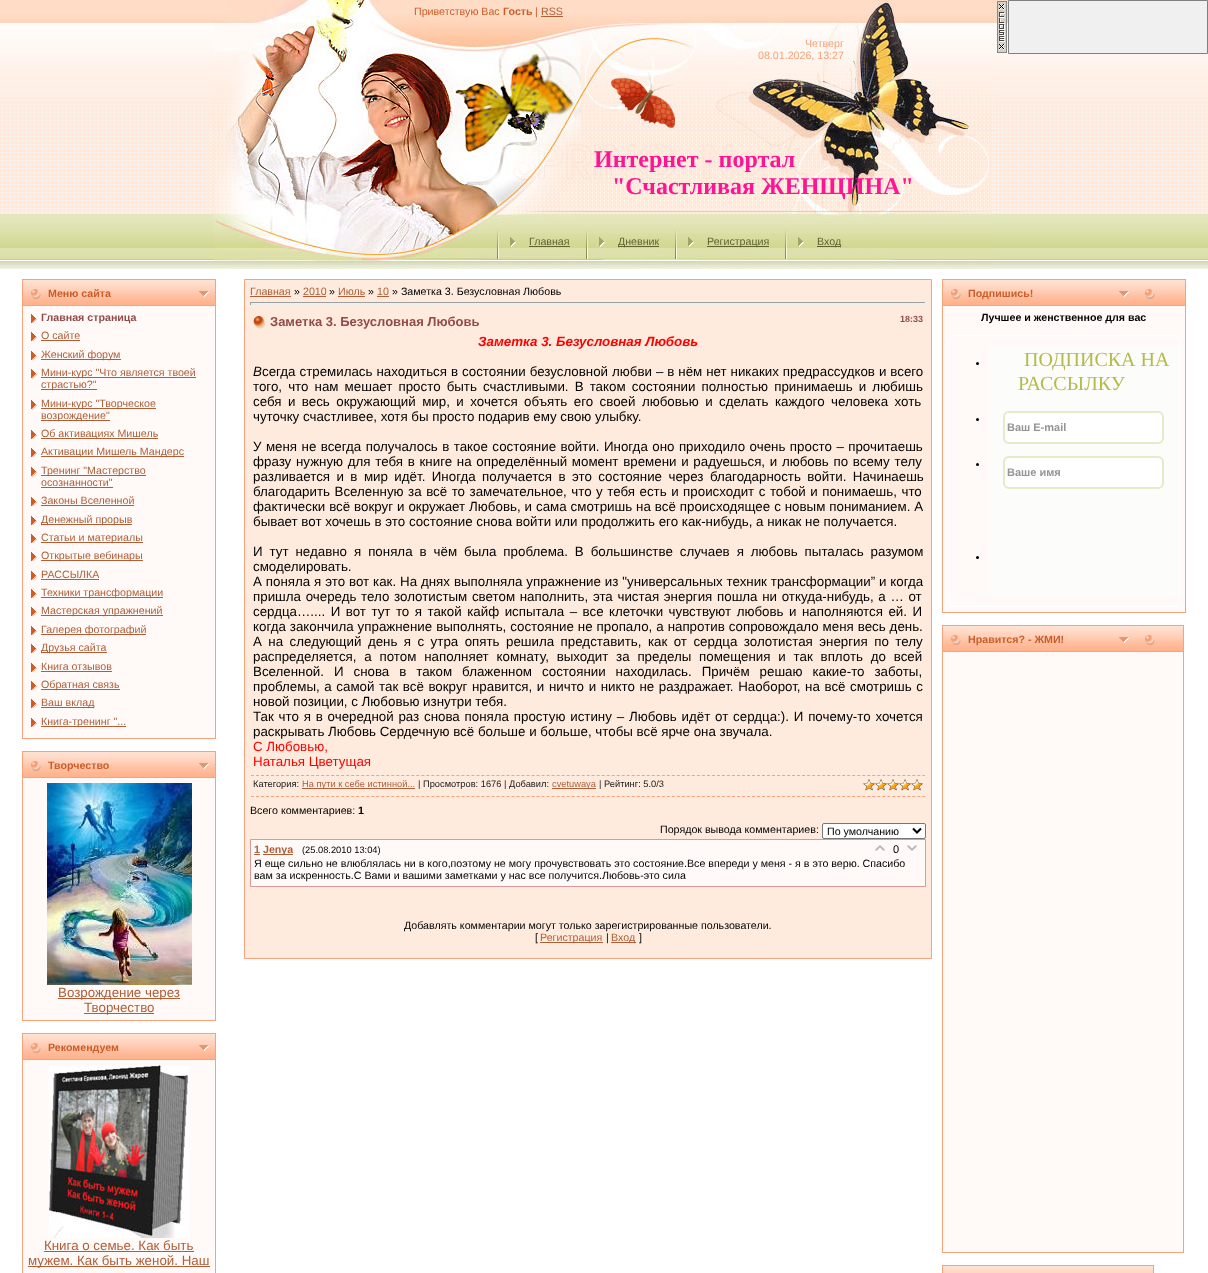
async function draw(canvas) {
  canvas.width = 1208;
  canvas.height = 1273;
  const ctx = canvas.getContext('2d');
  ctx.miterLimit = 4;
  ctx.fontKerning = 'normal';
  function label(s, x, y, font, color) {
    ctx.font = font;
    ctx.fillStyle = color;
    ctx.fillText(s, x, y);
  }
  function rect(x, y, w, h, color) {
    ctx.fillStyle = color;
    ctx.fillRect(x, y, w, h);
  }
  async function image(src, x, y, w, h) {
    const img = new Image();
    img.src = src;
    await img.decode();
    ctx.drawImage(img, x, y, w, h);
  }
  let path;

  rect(0, 0, 1208, 1273, '#fff');
  await image('assets/img1.png', 0, 0, 1208, 269);
  await image('assets/img2.png', 214, 0, 780, 34);
  label('Приветствую Вас', 414, 15, '10.67px Liberation Sans', '#cc5d28');
  label('Гость', 503, 15, 'bold 10.67px Liberation Sans', '#cc5d28');
  label('|', 535, 15, '10.67px Liberation Sans', '#cc5d28');
  label('RSS', 541, 15, '10.67px Liberation Sans', '#af5e38');
  rect(541, 16, 22, 1, '#af5e38');
  await image('assets/img3.png', 214, 34, 696, 38);
  label('Четверг', 805, 47, '10.67px Liberation Sans', '#f6a37b');
  label('08.01.2026, 13:27', 758, 59, '10.67px Liberation Sans', '#f6a37b');
  await image('assets/img4.png', 214, 72, 780, 142);
  label('Интернет - портал', 594, 167, 'bold 24px Liberation Serif', '#ff1493');
  label('"Счастливая ЖЕНЩИНА"', 612, 194, 'bold 24px Liberation Serif', '#ff1493');
  await image('assets/img5.png', 214, 214, 780, 55);
  await image('assets/img6.png', 497, 230, 19, 29);
  label('Главная', 529, 245, '10.67px Liberation Sans', '#5f6431');
  rect(529, 246, 41, 1, '#5f6431');
  await image('assets/img7.png', 586, 230, 19, 29);
  rect(618, 246, 41, 1, '#5f6431');
  label('Дневник', 618, 245, '10.67px Liberation Sans', '#5f6431');
  await image('assets/img8.png', 675, 230, 19, 29);
  rect(707, 246, 62, 1, '#5f6431');
  label('Регистрация', 707, 245, '10.67px Liberation Sans', '#5f6431');
  await image('assets/img9.png', 785, 230, 19, 29);
  rect(817, 246, 24, 1, '#5f6431');
  label('Вход', 817, 245, '10.67px Liberation Sans', '#5f6431');
  rect(22, 279, 194, 460, '#f6a37b');
  await image('assets/img10.png', 23, 280, 192, 25);
  label('Меню сайта', 48, 297, 'bold 10.67px Liberation Sans', '#cc5d28');
  rect(23, 306, 192, 432, '#fffaf8');
  await image('assets/img11.png', 31, 314, 6, 9);
  label('Главная страница', 41, 321, 'bold 10.67px Liberation Sans', '#934a4a');
  await image('assets/img11.png', 31, 332, 6, 9);
  label('О сайте', 41, 339, '10.67px Liberation Sans', '#af5e38');
  rect(41, 340, 39, 1, '#af5e38');
  await image('assets/img11.png', 31, 351, 6, 9);
  rect(41, 359, 80, 1, '#af5e38');
  label('Женский форум', 41, 358, '10.67px Liberation Sans', '#af5e38');
  await image('assets/img12.png', 31, 369, 6, 10);
  rect(41, 377, 155, 1, '#af5e38');
  label('Мини-курс "Что является твоей', 41, 376, '10.67px Liberation Sans', '#af5e38');
  rect(41, 389, 56, 1, '#af5e38');
  label('страстью?"', 41, 388, '10.67px Liberation Sans', '#af5e38');
  await image('assets/img12.png', 31, 400, 6, 10);
  rect(41, 408, 115, 1, '#af5e38');
  label('Мини-курс "Творческое', 41, 407, '10.67px Liberation Sans', '#af5e38');
  rect(41, 420, 69, 1, '#af5e38');
  label('возрождение"', 41, 419, '10.67px Liberation Sans', '#af5e38');
  await image('assets/img11.png', 31, 430, 6, 9);
  rect(41, 438, 117, 1, '#af5e38');
  label('Об активациях Мишель', 41, 437, '10.67px Liberation Sans', '#af5e38');
  await image('assets/img11.png', 31, 448, 6, 9);
  rect(41, 456, 143, 1, '#af5e38');
  label('Активации Мишель Мандерс', 41, 455, '10.67px Liberation Sans', '#af5e38');
  await image('assets/img12.png', 31, 467, 6, 10);
  rect(41, 475, 105, 1, '#af5e38');
  label('Тренинг "Мастерство', 41, 474, '10.67px Liberation Sans', '#af5e38');
  label('осознанности"', 41, 486, '10.67px Liberation Sans', '#af5e38');
  rect(41, 487, 72, 1, '#af5e38');
  await image('assets/img11.png', 31, 497, 6, 9);
  label('Законы Вселенной', 41, 504, '10.67px Liberation Sans', '#af5e38');
  rect(41, 505, 93, 1, '#af5e38');
  await image('assets/img11.png', 31, 516, 6, 9);
  rect(41, 524, 91, 1, '#af5e38');
  label('Денежный прорыв', 41, 523, '10.67px Liberation Sans', '#af5e38');
  await image('assets/img11.png', 31, 534, 6, 9);
  rect(41, 542, 102, 1, '#af5e38');
  label('Статьи и материалы', 41, 541, '10.67px Liberation Sans', '#af5e38');
  await image('assets/img11.png', 31, 552, 6, 9);
  rect(41, 560, 102, 1, '#af5e38');
  label('Открытые вебинары', 41, 559, '10.67px Liberation Sans', '#af5e38');
  await image('assets/img11.png', 31, 571, 6, 9);
  label('РАССЫЛКА', 41, 578, '10.67px Liberation Sans', '#af5e38');
  rect(41, 579, 58, 1, '#af5e38');
  await image('assets/img11.png', 31, 589, 6, 9);
  rect(41, 597, 122, 1, '#af5e38');
  label('Техники трансформации', 41, 596, '10.67px Liberation Sans', '#af5e38');
  await image('assets/img11.png', 31, 607, 6, 9);
  rect(41, 615, 122, 1, '#af5e38');
  label('Мастерская упражнений', 41, 614, '10.67px Liberation Sans', '#af5e38');
  await image('assets/img11.png', 31, 626, 6, 9);
  rect(41, 634, 105, 1, '#af5e38');
  label('Галерея фотографий', 41, 633, '10.67px Liberation Sans', '#af5e38');
  await image('assets/img11.png', 31, 644, 6, 9);
  rect(41, 652, 66, 1, '#af5e38');
  label('Друзья сайта', 41, 651, '10.67px Liberation Sans', '#af5e38');
  await image('assets/img11.png', 31, 663, 6, 9);
  label('Книга отзывов', 41, 670, '10.67px Liberation Sans', '#af5e38');
  rect(41, 671, 71, 1, '#af5e38');
  await image('assets/img11.png', 31, 681, 6, 9);
  rect(41, 689, 79, 1, '#af5e38');
  label('Обратная связь', 41, 688, '10.67px Liberation Sans', '#af5e38');
  await image('assets/img11.png', 31, 699, 6, 9);
  rect(41, 707, 53, 1, '#af5e38');
  label('Ваш вклад', 41, 706, '10.67px Liberation Sans', '#af5e38');
  await image('assets/img11.png', 31, 718, 6, 9);
  rect(41, 726, 85, 1, '#af5e38');
  label('Книга-тренинг "...', 41, 725, '10.67px Liberation Sans', '#af5e38');
  rect(22, 751, 194, 270, '#f6a37b');
  await image('assets/img10.png', 23, 752, 192, 25);
  label('Творчество', 48, 769, 'bold 10.67px Liberation Sans', '#cc5d28');
  rect(23, 778, 192, 242, '#fffaf8');
  await image('assets/img13.png', 47, 783, 145, 202);
  rect(58, 998, 122, 1, '#af5e38');
  label('Возрождение через', 58, 997, '13.33px Liberation Sans', '#af5e38');
  rect(84, 1013, 70, 1, '#af5e38');
  label('Творчество', 84, 1012, '13.33px Liberation Sans', '#af5e38');
  rect(22, 1033, 194, 240, '#f6a37b');
  await image('assets/img10.png', 23, 1034, 192, 25);
  label('Рекомендуем', 48, 1051, 'bold 10.67px Liberation Sans', '#cc5d28');
  rect(23, 1060, 192, 213, '#fffaf8');
  await image('assets/img14.png', 49, 1065, 140, 173);
  label('Книга о семье. Как быть', 44, 1250, '13.33px Liberation Sans', '#af5e38');
  rect(44, 1251, 150, 1, '#af5e38');
  rect(28, 1266, 182, 1, '#af5e38');
  label('мужем. Как быть женой. Наш', 28, 1265, '13.33px Liberation Sans', '#af5e38');
  ctx.fillStyle = '#ffebdd';
  ctx.beginPath();
  ctx.rect(244.5, 279.5, 687, 679);
  ctx.fill();
  ctx.strokeStyle = '#f6a37b';
  ctx.stroke();
  label('Главная', 250, 295, '10.67px Liberation Sans', '#af5e38');
  rect(250, 296, 41, 1, '#af5e38');
  label('»', 294, 295, '10.67px Liberation Sans', '#000');
  label('2010', 303, 295, '10.67px Liberation Sans', '#af5e38');
  rect(303, 296, 23, 1, '#af5e38');
  label('»', 329, 295, '10.67px Liberation Sans', '#000');
  label('Июль', 338, 295, '10.67px Liberation Sans', '#af5e38');
  rect(338, 296, 27, 1, '#af5e38');
  label('»', 368, 295, '10.67px Liberation Sans', '#000');
  label('10', 377, 295, '10.67px Liberation Sans', '#af5e38');
  rect(377, 296, 12, 1, '#af5e38');
  label('» Заметка 3. Безусловная Любовь', 392, 295, '10.67px Liberation Sans', '#000');
  rect(250, 302, 676, 1, '#9f9f9f');
  rect(925, 302, 1, 3, '#eee');
  rect(250, 304, 676, 1, '#eee');
  rect(250, 302, 1, 3, '#9f9f9f');
  await image('assets/img15.png', 253, 316, 12, 13);
  label('Заметка 3. Безусловная Любовь', 270, 326, 'bold 13px Liberation Sans', '#934a4a');
  label('18:33', 900, 322, 'bold 9px Liberation Sans', '#934a4a');
  await image('assets/img16.png', 997, 1, 10, 52);
  ctx.fillStyle = '#f0f0f0';
  ctx.beginPath();
  ctx.rect(1008.5, 0.5, 199, 53);
  ctx.fill();
  ctx.strokeStyle = '#808080';
  ctx.stroke();
  label('Заметка 3. Безусловная Любовь', 478, 346, 'italic bold 13.33px Liberation Sans', '#f00');
  label('В', 253, 376, 'italic 13.33px Liberation Sans', '#000');
  ctx.wordSpacing = '0.25px';
  label('сегда стремилась находиться в состоянии безусловной любви – в нём нет никаких предрассудков и всего', 262, 376, '13.33px Liberation Sans', '#000');
  ctx.wordSpacing = '2.4px';
  label('того, что нам мешает просто быть счастливыми. В таком состоянии полностью принимаешь и любишь', 253, 391, '13.33px Liberation Sans', '#000');
  ctx.wordSpacing = '2.75px';
  label('себя и весь окружающий мир, и хочется объять его своей любовью и сделать каждого человека хоть', 253, 406, '13.33px Liberation Sans', '#000');
  ctx.wordSpacing = '0px';
  label('чуточку счастливее, хотя бы просто подарив ему свою улыбку.', 253, 421, '13.33px Liberation Sans', '#000');
  ctx.wordSpacing = '0.75px';
  label('У меня не всегда получалось в такое состояние войти. Иногда оно приходило очень просто – прочитаешь', 253, 451, '13.33px Liberation Sans', '#000');
  ctx.wordSpacing = '1px';
  label('фразу нужную для тебя в книге на определённый момент времени и радуешься, и любовь по всему телу', 253, 466, '13.33px Liberation Sans', '#000');
  ctx.wordSpacing = '2.75px';
  label('разливается и в мир идёт. Иногда получается в это состояние через благодарность войти. Начинаешь', 253, 481, '13.33px Liberation Sans', '#000');
  ctx.wordSpacing = '0.8px';
  label('благодарить Вселенную за всё то замечательное, что у тебя есть и происходит с тобой и понимаешь, что', 253, 496, '13.33px Liberation Sans', '#000');
  ctx.wordSpacing = '0.25px';
  label('фактически всё вокруг и окружает Любовь, и сама смотришь на всё происходящее с новым пониманием. А', 253, 511, '13.33px Liberation Sans', '#000');
  ctx.wordSpacing = '0px';
  label('бывает вот хочешь в это состояние снова войти или продолжить его как-нибудь, а никак не получается.', 253, 526, '13.33px Liberation Sans', '#000');
  ctx.wordSpacing = '3.25px';
  label('И тут недавно я поняла в чём была проблема. В большинстве случаев я любовь пыталась разумом', 253, 556, '13.33px Liberation Sans', '#000');
  ctx.wordSpacing = '0px';
  label('смоделировать.', 253, 571, '13.33px Liberation Sans', '#000');
  ctx.wordSpacing = '0.2px';
  label('А поняла я это вот как. На днях выполняла упражнение из "универсальных техник трансформации” и когда', 253, 586, '13.33px Liberation Sans', '#000');
  ctx.wordSpacing = '1px';
  label('пришла очередь тело золотистым светом наполнить, эта чистая энергия пошла ни откуда-нибудь, а … от', 253, 601, '13.33px Liberation Sans', '#000');
  ctx.wordSpacing = '1.8px';
  label('сердца….... И вот тут то я такой кайф испытала – все клеточки чувствуют любовь и наполняются ей. И', 253, 616, '13.33px Liberation Sans', '#000');
  ctx.wordSpacing = '0.25px';
  label('когда закончила упражнение выполнять, состояние не пропало, а напротив сопровождало меня весь день.', 253, 631, '13.33px Liberation Sans', '#000');
  ctx.wordSpacing = '2.75px';
  label('А на следующий день я с утра опять решила представить, как от сердца золотистая энергия по телу', 253, 646, '13.33px Liberation Sans', '#000');
  ctx.wordSpacing = '4.1px';
  label('распределяется, а потом наполняет комнату, выходит за пределы помещения и так вплоть до всей', 253, 661, '13.33px Liberation Sans', '#000');
  ctx.wordSpacing = '6.25px';
  label('Вселенной. И снова в таком блаженном состоянии находилась. Причём решаю какие-то заботы,', 253, 676, '13.33px Liberation Sans', '#000');
  ctx.wordSpacing = '0.9px';
  label('проблемы, а самой так всё вокруг нравится, и ничто и никто не раздражает. Наоборот, на всё смотришь с', 253, 691, '13.33px Liberation Sans', '#000');
  ctx.wordSpacing = '0px';
  label('новой позиции, с Любовью изнутри тебя.', 253, 706, '13.33px Liberation Sans', '#000');
  ctx.wordSpacing = '1.1px';
  label('Так что я в очередной раз снова поняла простую истину – Любовь идёт от сердца:). И почему-то хочется', 253, 721, '13.33px Liberation Sans', '#000');
  ctx.wordSpacing = '0px';
  label('раскрывать Любовь Сердечную всё больше и больше, чтобы всё ярче она звучала.', 253, 736, '13.33px Liberation Sans', '#000');
  label('С Любовью,', 253, 751, '13.33px Liberation Sans', '#f00');
  label('Наталья Цветущая', 253, 766, '13.33px Liberation Sans', '#f00');
  path = new Path2D('M251 775.5H925');
  ctx.strokeStyle = '#f6a37b';
  ctx.setLineDash([3, 2.01]);
  ctx.stroke(path);
  path = new Path2D('M251 796.5H925');
  ctx.stroke(path);
  label('Категория:', 253, 787, '9.3px Liberation Sans', '#1a1a1a');
  rect(302, 788, 113, 1, '#af5e38');
  label('На пути к себе истинной...', 302, 787, '9.3px Liberation Sans', '#af5e38');
  label('| Просмотров: 1676 | Добавил:', 418, 787, '9.3px Liberation Sans', '#1a1a1a');
  rect(552, 788, 44, 1, '#af5e38');
  label('cvetuwaya', 552, 787, '9.3px Liberation Sans', '#af5e38');
  label('| Рейтинг: 5.0/3', 599, 787, '9.3px Liberation Sans', '#1a1a1a');
  await image('assets/img17.png', 863, 779, 60, 12);
  await image('assets/img18.png', 863, 779, 60, 12);
  label('Всего комментариев:', 250, 814, '10.67px Liberation Sans', '#000');
  label('1', 358, 814, 'bold 10.67px Liberation Sans', '#000');
  label('Порядок вывода комментариев:', 660, 833, '10.67px Liberation Sans', '#000');
  ctx.fillStyle = '#fff';
  ctx.beginPath();
  ctx.roundRect(822.5, 823.5, 103, 15, 1.5);
  ctx.fill();
  ctx.strokeStyle = '#767676';
  ctx.setLineDash([]);
  ctx.stroke();
  path = new Path2D('M913 828.5L917 832.5L921 828.5');
  ctx.strokeStyle = '#000';
  ctx.lineWidth = 2;
  ctx.stroke(path);
  label('По умолчанию', 827, 835, '10.67px Liberation Sans', '#000');
  ctx.fillStyle = '#fffaf8';
  ctx.beginPath();
  ctx.rect(250.5, 839.5, 675, 47);
  ctx.fill();
  ctx.strokeStyle = '#d99';
  ctx.lineWidth = 1;
  ctx.stroke();
  label('1', 254, 853, 'bold 10.67px Liberation Sans', '#af5e38');
  rect(254, 854, 6, 1, '#af5e38');
  rect(263, 854, 30, 1, '#af5e38');
  label('Jenya', 263, 853, 'bold 10.67px Liberation Sans', '#af5e38');
  label('(25.08.2010 13:04)', 302, 853, '9.3px Liberation Sans', '#000');
  await image('assets/img19.png', 875, 845, 10, 6);
  label('0', 893, 853, '11px Liberation Sans', '#000');
  await image('assets/img20.png', 907, 845, 10, 6);
  label('Я еще сильно не влюблялась ни в кого,поэтому не могу прочувствовать это состояние.Все впереди у меня - я в это верю. Спасибо', 254, 867, '10.67px Liberation Sans', '#000');
  label('вам за искренность.С Вами и вашими заметками у нас все получится.Любовь-это сила', 254, 879, '10.67px Liberation Sans', '#000');
  label('Добавлять комментарии могут только зарегистрированные пользователи.', 404, 929, '10.67px Liberation Sans', '#000');
  label('[', 535, 941, '10.67px Liberation Sans', '#000');
  rect(540, 942, 63, 1, '#af5e38');
  label('Регистрация', 540, 941, '10.67px Liberation Sans', '#af5e38');
  label('|', 606, 941, '10.67px Liberation Sans', '#000');
  rect(611, 942, 25, 1, '#af5e38');
  label('Вход', 611, 941, '10.67px Liberation Sans', '#af5e38');
  label(']', 639, 941, '10.67px Liberation Sans', '#000');
  rect(942, 279, 244, 334, '#f6a37b');
  await image('assets/img21.png', 943, 280, 242, 25);
  label('Подпишись!', 968, 297, 'bold 10.67px Liberation Sans', '#cc5d28');
  rect(943, 306, 242, 306, '#fffaf8');
  label('Лучшее и женственное для вас', 981, 321, 'bold 10.67px Liberation Sans', '#000');
  ctx.beginPath();
  ctx.roundRect(948.5, 335.5, 231, 271, 5.5);
  ctx.strokeStyle = '#fff';
  ctx.stroke();
  ctx.fillStyle = '#fcfcfa';
  ctx.beginPath();
  ctx.roundRect(989, 347, 190, 49, [1, 1, 0, 0]);
  ctx.fill();
  ctx.fillStyle = '#000';
  ctx.beginPath();
  ctx.arc(977.5, 363.5, 1.5, 0, 2 * Math.PI);
  ctx.fill();
  label('ПОДПИСКА НА', 1024, 366, '20px Liberation Serif', '#b4bb4c');
  label('РАССЫЛКУ', 1018, 390, '20px Liberation Serif', '#b4bb4c');
  rect(989, 396, 190, 90, '#fcfcfa');
  ctx.fillStyle = '#000';
  ctx.beginPath();
  ctx.arc(977.5, 419.5, 1.5, 0, 2 * Math.PI);
  ctx.fill();
  ctx.fillStyle = '#fff';
  ctx.beginPath();
  ctx.roundRect(1004, 412, 159, 31, 5);
  ctx.fill();
  ctx.strokeStyle = '#e7e9c7';
  ctx.lineWidth = 2;
  ctx.stroke();
  label('Ваш E-mail', 1007, 431, 'bold 11px Liberation Sans', '#949494');
  ctx.fillStyle = '#000';
  ctx.beginPath();
  ctx.arc(977.5, 464.5, 1.5, 0, 2 * Math.PI);
  ctx.fill();
  ctx.fillStyle = '#fcfcfa';
  ctx.beginPath();
  ctx.roundRect(989, 486, 190, 110, [0, 0, 1, 1]);
  ctx.fill();
  ctx.fillStyle = '#fff';
  ctx.beginPath();
  ctx.roundRect(1004, 457, 159, 31, 5);
  ctx.fill();
  ctx.stroke();
  label('Ваше имя', 1007, 476, 'bold 11px Liberation Sans', '#949494');
  ctx.fillStyle = '#000';
  ctx.beginPath();
  ctx.arc(977.5, 557.5, 1.5, 0, 2 * Math.PI);
  ctx.fill();
  rect(942, 625, 242, 628, '#f6a37b');
  await image('assets/img22.png', 943, 626, 240, 25);
  label('Нравится? - ЖМИ!', 968, 643, 'bold 10.67px Liberation Sans', '#cc5d28');
  rect(943, 652, 240, 600, '#fffaf8');
  rect(942, 1265, 212, 8, '#f6a37b');
  await image('assets/img23.png', 943, 1266, 210, 7);
}

draw(document.querySelector('canvas'));
